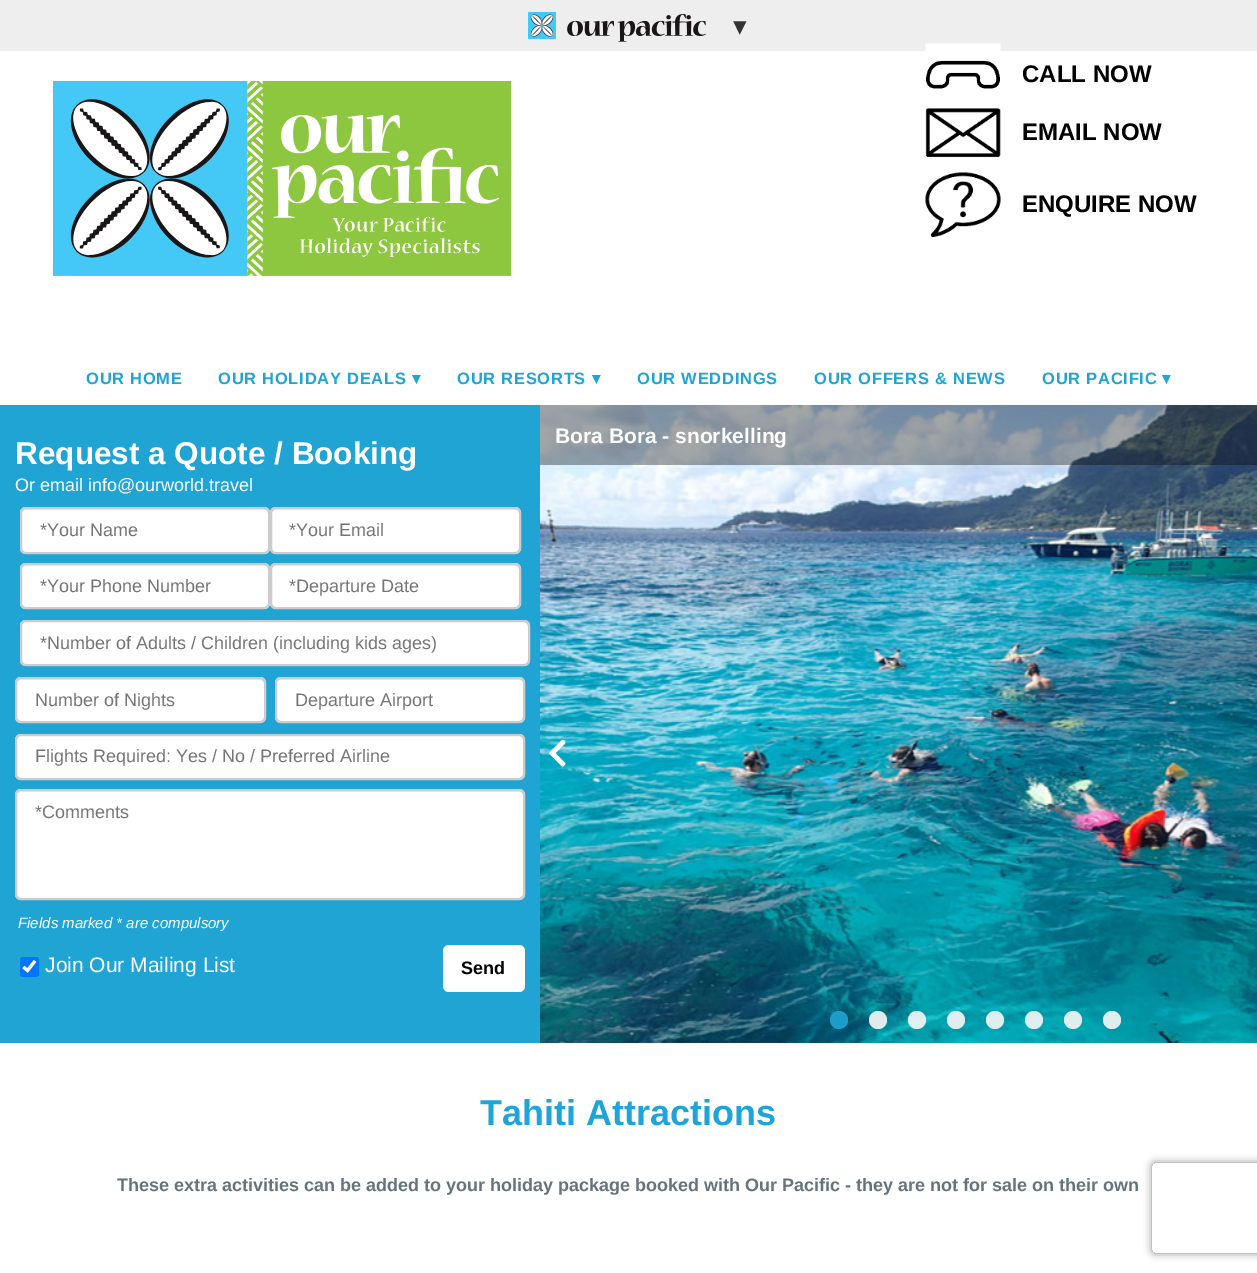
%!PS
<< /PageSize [1257 1273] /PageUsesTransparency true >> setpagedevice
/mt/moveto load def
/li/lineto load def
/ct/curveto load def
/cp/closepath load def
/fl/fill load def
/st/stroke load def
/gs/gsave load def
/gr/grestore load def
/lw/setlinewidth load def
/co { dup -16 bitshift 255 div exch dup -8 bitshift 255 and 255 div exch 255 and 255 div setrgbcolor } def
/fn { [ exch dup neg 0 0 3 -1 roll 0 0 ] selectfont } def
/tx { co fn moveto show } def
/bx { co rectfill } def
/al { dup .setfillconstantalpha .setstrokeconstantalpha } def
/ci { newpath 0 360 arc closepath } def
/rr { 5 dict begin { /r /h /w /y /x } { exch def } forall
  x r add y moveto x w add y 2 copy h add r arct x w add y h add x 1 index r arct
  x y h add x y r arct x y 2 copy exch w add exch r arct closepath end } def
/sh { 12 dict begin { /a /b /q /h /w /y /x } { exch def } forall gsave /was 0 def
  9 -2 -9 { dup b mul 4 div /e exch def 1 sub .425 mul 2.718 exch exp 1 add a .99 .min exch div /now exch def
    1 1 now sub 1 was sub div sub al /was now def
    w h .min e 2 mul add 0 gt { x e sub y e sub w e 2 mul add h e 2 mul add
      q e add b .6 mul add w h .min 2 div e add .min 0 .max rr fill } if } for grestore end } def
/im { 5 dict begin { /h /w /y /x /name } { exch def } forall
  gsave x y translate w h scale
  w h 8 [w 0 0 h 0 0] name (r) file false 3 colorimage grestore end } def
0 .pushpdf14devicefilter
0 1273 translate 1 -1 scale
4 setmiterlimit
0 0 1257 1273 16#FFFFFF bx
0 0 1257 51 16#EEEEEE bx
(media/1.raw) 528 12 179 30 im
(media/2.raw) 53 81 459 195 im
(media/3.raw) 925 43 76 46 im
(media/4.raw) 925 108 76 50 im
(media/5.raw) 925 172 76 65 im
(media/6.raw) 540 405 717 638 im
0.35 al
540 405 717 60 16#000000 bx
1 al
(media/7.raw) 549 739 17 28 im
0.9 al
16#1FA4D3 co
839 1020 9 ci fl
16#F7F7F7 co
878 1020 9 ci fl
917 1020 9 ci fl
956 1020 9 ci fl
995 1020 9 ci fl
1034 1020 9 ci fl
1073 1020 9 ci fl
1112 1020 9 ci fl
1 al
0 405 540 638 16#1FA4D3 bx
16#FFFFFF co
20 507 250 47 6 rr fl
16#ECECEC co
26 510 mt 264 510 li 266 510 268 512 268 514 ct 268 550 li 269 549 269 548 269 547 ct 269 514 li 269 511 267 509 264 509 ct 26 509 li 23 509 21 511 21 514 ct 21 512 23 510 26 510 ct cp fl
16#CCCCCC co
2 lw
21 508 248 45 5 rr st
16#FFFFFF co
270 507 251 47 6 rr fl
16#ECECEC co
276 510 mt 514 510 li 517 510 519 512 519 514 ct 519 511 517 509 514 509 ct 277 509 li 274 509 272 511 272 514 ct 272 512 274 510 276 510 ct cp fl
16#CCCCCC co
271 508 249 45 5 rr st
16#FFFFFF co
20 563 250 46 6 rr fl
16#ECECEC co
26 566 mt 264 566 li 266 566 268 568 268 570 ct 268 604 li 267 607 li 268 606 269 604 269 603 ct 269 569 li 269 566 267 564 264 564 ct 26 564 li 23 564 21 566 21 569 ct 21 570 li 21 568 23 566 26 566 ct cp fl
16#CCCCCC co
21 564 248 44 5 rr st
16#FFFFFF co
270 563 251 46 6 rr fl
16#ECECEC co
276 566 mt 514 566 li 517 566 519 568 519 570 ct 519 569 li 519 566 517 564 514 564 ct 277 564 li 274 564 272 566 272 569 ct 272 570 li 272 568 274 566 276 566 ct cp fl
16#CCCCCC co
271 564 249 44 5 rr st
16#FFFFFF co
20 620 510 46 6 rr fl
16#ECECEC co
26 622 mt 524 622 li 526 622 528 625 528 627 ct 528 626 li 528 623 526 621 523 621 ct 26 621 li 23 621 21 623 21 626 ct 21 627 li 21 625 23 622 26 622 ct cp fl
16#CCCCCC co
21 621 508 44 5 rr st
16#FFFFFF co
15 677 251 46 6 rr fl
16#ECECEC co
21 680 mt 260 680 li 262 680 264 682 264 684 ct 264 683 li 264 680 262 678 259 678 ct 22 678 li 20 678 18 680 17 682 ct 18 681 20 680 21 680 ct cp fl
16#CCCCCC co
16 678 249 44 5 rr st
16#FFFFFF co
275 677 250 46 6 rr fl
16#ECECEC co
280 680 mt 519 680 li 521 680 524 682 524 684 ct 524 683 li 524 680 522 678 519 678 ct 281 678 li 278 678 276 680 276 683 ct 276 684 li 276 682 278 680 280 680 ct cp fl
16#CCCCCC co
276 678 248 44 5 rr st
16#FFFFFF co
15 734 510 46 6 rr fl
16#ECECEC co
21 736 mt 519 736 li 521 736 524 739 524 741 ct 524 740 li 524 737 522 735 519 735 ct 22 735 li 20 735 18 736 17 738 ct 18 737 20 736 21 736 ct cp fl
16#CCCCCC co
16 735 508 44 5 rr st
16#FFFFFF co
15 789 510 111 6 rr fl
16#ECECEC co
21 792 mt 519 792 li 521 792 524 794 524 796 ct 524 793 522 791 519 791 ct 22 791 li 20 791 19 792 18 793 ct cp fl
16#CCCCCC co
16 790 508 109 5 rr st
16#0075FF co
20 957 19 20 3 rr fl
16#FFFFFF co
3.1 lw
23.5 967 mt 27.5 970.5 li 35 961 li st
443 945 82 47 6 rr fl
gs
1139 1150 mt 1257 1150 li 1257 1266 li 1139 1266 li cp 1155 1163 mt 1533 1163 li 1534.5 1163 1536 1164.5 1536 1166 ct 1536 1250 li 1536 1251.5 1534.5 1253 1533 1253 ct 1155 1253 li 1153.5 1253 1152 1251.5 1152 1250 ct 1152 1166 li 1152 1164.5 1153.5 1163 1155 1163 ct cp eoclip newpath
16#808080 co
1152 1163 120 90 3 4 1 sh
gr
(▾) 733 35 /DejaVuSans-Regular 27 16#333333 tx
(CALL NOW) 1022 82 /LiberationSans-Bold 24 16#000000 tx
(EMAIL NOW) 1022 140 /LiberationSans-Bold 24 16#000000 tx
(ENQUIRE NOW) 1022 212 /LiberationSans-Bold 24 16#000000 tx
/LiberationSans-Bold 16.5 fn
16#1FA4D3 co
86 384 mt .75 0 (OUR HOME) ashow
218 384 mt .75 0 (OUR HOLIDAY DEALS) ashow
/DejaVuSans-Bold 16.5 fn
412 384 mt .75 0 (▾) ashow
/LiberationSans-Bold 16.5 fn
457 384 mt .75 0 (OUR RESORTS) ashow
/DejaVuSans-Bold 16.5 fn
592 384 mt .75 0 (▾) ashow
/LiberationSans-Bold 16.5 fn
637 384 mt .75 0 (OUR WEDDINGS) ashow
814 384 mt .75 0 (OUR OFFERS & NEWS) ashow
1042 384 mt .75 0 (OUR PACIFIC) ashow
/DejaVuSans-Bold 16.5 fn
1162 384 mt .75 0 (▾) ashow
(Bora Bora - snorkelling) 555 443 /LiberationSans-Bold 21 16#FFFFFF tx
(Request a Quote / Booking) 15 464 /LiberationSans-Bold 31.5 16#FFFFFF tx
(Or email info@ourworld.travel) 15 491 /LiberationSans-Regular 18 16#FFFFFF tx
(*Your Name) 40 536 /LiberationSans-Regular 18 16#757575 tx
(*Your Email) 289 536 /LiberationSans-Regular 18 16#757575 tx
(*Your Phone Number) 40 592 /LiberationSans-Regular 18 16#757575 tx
(*Departure Date) 289 592 /LiberationSans-Regular 18 16#757575 tx
(*Number of Adults / Children \(including kids ages\)) 40 649 /LiberationSans-Regular 18 16#757575 tx
(Number of Nights) 35 706 /LiberationSans-Regular 18 16#757575 tx
(Departure Airport) 295 706 /LiberationSans-Regular 18 16#757575 tx
(Flights Required: Yes / No / Preferred Airline) 35 762 /LiberationSans-Regular 18 16#757575 tx
(*Comments) 35 818 /LiberationSans-Regular 18 16#757575 tx
(Fields marked * are compulsory) 18 928 /LiberationSans-Italic 15 16#FFFFFF tx
(Join Our Mailing List) 45 972 /LiberationSans-Regular 21 16#FFFFFF tx
(Send) 461 974 /LiberationSans-Bold 18 16#000000 tx
(Tahiti Attractions) 480 1125 /LiberationSans-Bold 36 16#1FA4D9 tx
(These extra activities can be added to your holiday package booked with Our Pacific - they are not for sale on their own) 117 1191 /LiberationSans-Bold 18 16#65747C tx
.poppdf14devicefilter showpage
